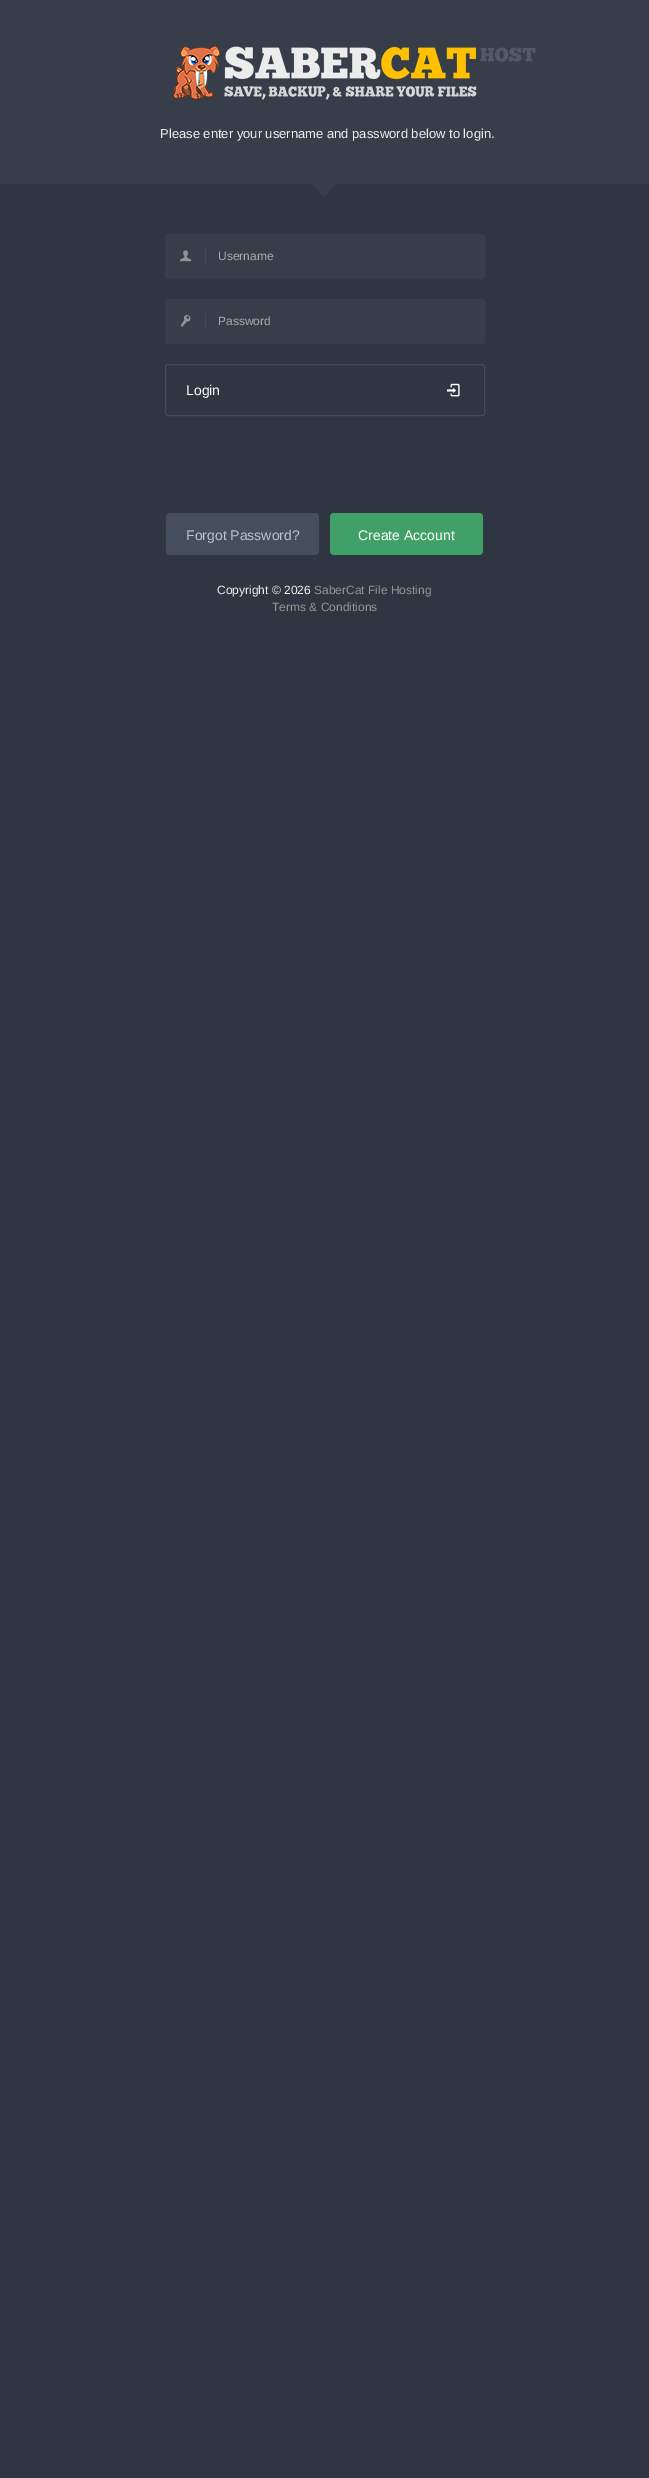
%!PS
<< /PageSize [649 2478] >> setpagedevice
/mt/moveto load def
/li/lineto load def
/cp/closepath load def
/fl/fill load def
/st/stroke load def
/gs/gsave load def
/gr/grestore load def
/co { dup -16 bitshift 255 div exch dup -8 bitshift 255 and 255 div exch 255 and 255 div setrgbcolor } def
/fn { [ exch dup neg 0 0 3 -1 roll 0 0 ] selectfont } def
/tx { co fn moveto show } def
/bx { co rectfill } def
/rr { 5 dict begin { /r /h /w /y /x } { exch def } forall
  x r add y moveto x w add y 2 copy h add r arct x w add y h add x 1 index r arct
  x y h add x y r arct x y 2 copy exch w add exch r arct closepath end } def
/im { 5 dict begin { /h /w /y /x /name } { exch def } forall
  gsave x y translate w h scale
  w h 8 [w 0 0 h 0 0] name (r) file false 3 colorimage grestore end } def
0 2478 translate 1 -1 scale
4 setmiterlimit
0 0 649 2478 16#303641 bx
0 0 649 184 16#373E4A bx
(media/1.raw) 172 45 364 55 im
312 184 mt 336 184 li 324 197 li cp fl
165.5 234.5 319 44 2.5 rr gs fl gr
st
(media/2.raw) 180 250 12 12 im
205 248 1 17 16#454A54 bx
16#373E4A co
165.5 299.5 319 44 2.5 rr gs fl gr
st
(media/3.raw) 181 315 10 12 im
205 313 1 17 16#454A54 bx
165.5 364.5 319 51 2.5 rr st
(media/4.raw) 447 383 13 14 im
16#454E5D co
166 513 153 42 4 rr fl
16#41A067 co
330 513 153 42 4 rr fl
(Please enter your username and password below to login.) 160 138 /LiberationSans-Regular 13 16#EEEEEE tx
(Username) 218 260 /LiberationSans-Regular 12 16#AAAAAA tx
(Password) 218 325 /LiberationSans-Regular 12 16#AAAAAA tx
(Login) 186 395 /LiberationSans-Regular 14 16#FFFFFF tx
(Forgot Password?) 186 540 /LiberationSans-Regular 14 16#BEC3CC tx
(Create Account) 358 540 /LiberationSans-Regular 14 16#FFFFFF tx
(Copyright © 2026) 217 594 /LiberationSans-Regular 12 16#EEEEEE tx
(SaberCat File Hosting) 314 594 /LiberationSans-Regular 12 16#949494 tx
(Terms & Conditions) 272 611 /LiberationSans-Regular 12 16#949494 tx
showpage
